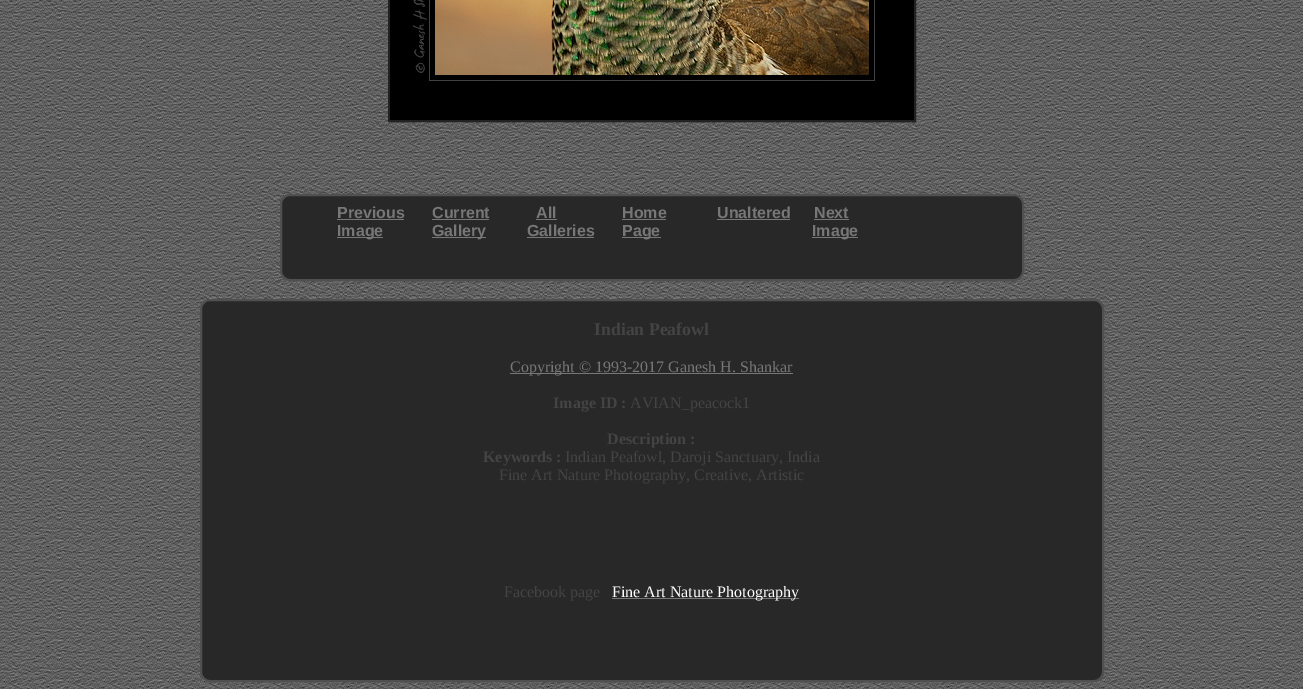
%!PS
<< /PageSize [1303 689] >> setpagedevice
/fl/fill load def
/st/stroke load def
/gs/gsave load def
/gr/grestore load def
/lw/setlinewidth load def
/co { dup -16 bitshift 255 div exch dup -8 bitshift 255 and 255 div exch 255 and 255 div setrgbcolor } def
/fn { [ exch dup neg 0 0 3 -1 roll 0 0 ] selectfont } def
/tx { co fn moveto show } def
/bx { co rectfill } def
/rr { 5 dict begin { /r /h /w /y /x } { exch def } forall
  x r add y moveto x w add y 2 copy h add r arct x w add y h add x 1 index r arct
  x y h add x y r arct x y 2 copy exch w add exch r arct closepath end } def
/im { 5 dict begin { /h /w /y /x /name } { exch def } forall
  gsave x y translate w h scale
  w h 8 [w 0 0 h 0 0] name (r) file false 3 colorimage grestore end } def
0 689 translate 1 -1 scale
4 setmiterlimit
0 0 1303 689 16#FFFFFF bx
(media/1.raw) 0 0 1303 689 im
16#222222 co
2 lw
389 -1 526 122 rectstroke
(media/2.raw) 390 0 524 120 im
16#282828 co
281 195 742 85 9 rr gs fl gr
16#505050 co
st
337 219 67 1 16#777777 bx
337 237 46 1 16#777777 bx
432 219 57 1 16#777777 bx
432 237 54 1 16#777777 bx
536 219 21 1 16#777777 bx
527 237 67 1 16#777777 bx
622 219 44 1 16#777777 bx
622 237 39 1 16#777777 bx
717 219 73 1 16#777777 bx
814 219 35 1 16#777777 bx
812 237 46 1 16#777777 bx
16#282828 co
201 300 902 381 9 rr gs fl gr
16#505050 co
st
510 373 283 1 16#777777 bx
612 598 187 1 16#777777 bx
(Previous) 337 218 /LiberationSans-Bold 16 16#777777 tx
(Image) 337 236 /LiberationSans-Bold 16 16#777777 tx
(Current) 432 218 /LiberationSans-Bold 16 16#777777 tx
(Gallery) 432 236 /LiberationSans-Bold 16 16#777777 tx
(All) 536 218 /LiberationSans-Bold 16 16#777777 tx
(Galleries) 527 236 /LiberationSans-Bold 16 16#777777 tx
(Home) 622 218 /LiberationSans-Bold 16 16#777777 tx
(Page) 622 236 /LiberationSans-Bold 16 16#777777 tx
(Unaltered) 717 218 /LiberationSans-Bold 16 16#777777 tx
(Next) 814 218 /LiberationSans-Bold 16 16#777777 tx
(Image) 812 236 /LiberationSans-Bold 16 16#777777 tx
(Indian Peafowl) 594 335 /LiberationSerif-Bold 17.75 16#444444 tx
(Copyright © 1993-2017 Ganesh H. Shankar) 510 372 /LiberationSerif-Regular 16 16#777777 tx
(Image ID :) 553 408 /LiberationSerif-Bold 16 16#444444 tx
(AVIAN_peacock1) 630 408 /LiberationSerif-Regular 16 16#444444 tx
(Description :) 607 444 /LiberationSerif-Bold 16 16#444444 tx
(Keywords :) 483 462 /LiberationSerif-Bold 16 16#444444 tx
(Indian Peafowl, Daroji Sanctuary, India) 565 462 /LiberationSerif-Regular 16 16#444444 tx
(Fine Art Nature Photography, Creative, Artistic) 499 480 /LiberationSerif-Regular 16 16#444444 tx
(Facebook page) 504 597 /LiberationSerif-Regular 16 16#444444 tx
(Fine Art Nature Photography) 612 597 /LiberationSerif-Regular 16 16#FFFFFF tx
showpage
